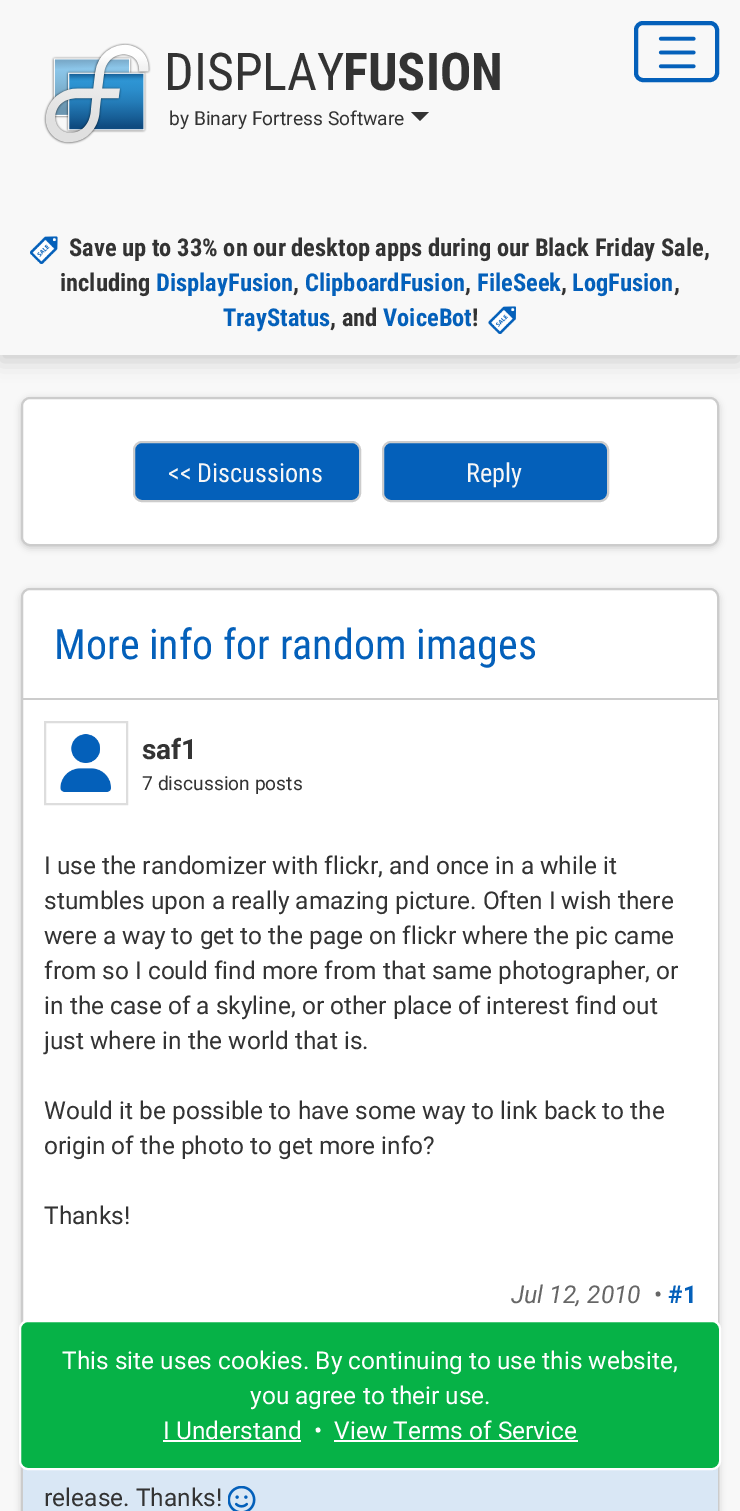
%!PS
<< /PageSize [740 1511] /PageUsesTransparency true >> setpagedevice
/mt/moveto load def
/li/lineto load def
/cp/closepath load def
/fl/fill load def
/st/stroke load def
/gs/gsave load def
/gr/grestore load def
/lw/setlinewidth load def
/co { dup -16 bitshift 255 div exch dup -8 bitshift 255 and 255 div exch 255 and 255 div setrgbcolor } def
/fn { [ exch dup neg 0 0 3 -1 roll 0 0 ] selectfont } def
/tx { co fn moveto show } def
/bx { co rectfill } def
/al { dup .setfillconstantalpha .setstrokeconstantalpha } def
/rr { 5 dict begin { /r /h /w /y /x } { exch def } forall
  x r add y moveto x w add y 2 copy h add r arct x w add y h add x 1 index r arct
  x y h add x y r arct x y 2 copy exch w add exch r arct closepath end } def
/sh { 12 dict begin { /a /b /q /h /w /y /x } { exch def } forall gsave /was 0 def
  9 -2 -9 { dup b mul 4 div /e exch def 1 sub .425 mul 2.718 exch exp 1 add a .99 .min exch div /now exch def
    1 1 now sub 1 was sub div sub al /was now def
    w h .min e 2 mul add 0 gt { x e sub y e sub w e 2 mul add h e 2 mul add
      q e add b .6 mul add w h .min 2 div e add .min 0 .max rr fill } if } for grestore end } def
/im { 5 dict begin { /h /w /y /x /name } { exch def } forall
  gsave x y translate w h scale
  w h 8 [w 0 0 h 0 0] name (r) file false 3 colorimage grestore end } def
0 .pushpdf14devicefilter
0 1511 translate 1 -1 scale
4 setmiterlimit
0 0 740 1511 16#F8F8F8 bx
gs
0 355 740 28 rectclip
16#CCCCCC co
0 5 740 356 0 10.5 1 sh
gr
(media/1.raw) 43 43 108 102 im
16#333333 co
411 112 mt 429 112 li 420 121 li cp fl
16#0460BA co
4 lw
636 23 81 57 7 rr st
(media/2.raw) 658 36 38 33 im
(media/3.raw) 30 236 28 28 im
(media/4.raw) 488 306 28 28 im
16#CCCCCC co
21 399 698 149 9 3.5 1 sh
16#FFFFFF co
22 398 696 147 8 rr gs fl gr
16#CCCCCC co
2 lw
st
16#0460BA co
134 442 226 59 8 rr gs fl gr
16#CCCCCC co
st
16#0460BA co
383 442 225 59 8 rr gs fl gr
16#CCCCCC co
st
21 590 698 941 9 3.5 1 sh
16#FFFFFF co
22 589 696 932 8 rr gs fl gr
16#CCCCCC co
st
23 698 695 2 16#CCCCCC bx
717 700 1 623 16#FFFFFF bx
16#DDDDDD co
45 722 82 82 rectstroke
(media/5.raw) 60 734 51 58 im
23 1467 695 44 16#D9E7F5 bx
(media/6.raw) 228 1486 28 25 im
16#06B247 co
20 1321 700 148 8 rr gs fl gr
16#FFFFFF co
st
163 1440 138 2 16#FFFFFF bx
334 1440 244 2 16#FFFFFF bx
(DISPLAY) 164 90 /RobotoCondensed-Regular 52 16#333333 tx
(FUSION) 343 90 /RobotoCondensed-Bold 52 16#333333 tx
(by Binary Fortress Software) 169 125 /Roboto-Regular 19.25 16#333333 tx
(Save up to 33% on our desktop apps during our Black Friday Sale,) 69 256 /RobotoCondensed-Bold 24.5 16#333333 tx
(including) 60 291 /RobotoCondensed-Bold 24.5 16#333333 tx
(DisplayFusion) 156 291 /RobotoCondensed-Bold 24.5 16#0460BA tx
(,) 293 291 /RobotoCondensed-Bold 24.5 16#333333 tx
(ClipboardFusion) 305 291 /RobotoCondensed-Bold 24.5 16#0460BA tx
(,) 465 291 /RobotoCondensed-Bold 24.5 16#333333 tx
(FileSeek) 477 291 /RobotoCondensed-Bold 24.5 16#0460BA tx
(,) 561 291 /RobotoCondensed-Bold 24.5 16#333333 tx
(LogFusion) 572 291 /RobotoCondensed-Bold 24.5 16#0460BA tx
(,) 674 291 /RobotoCondensed-Bold 24.5 16#333333 tx
(TrayStatus) 223 326 /RobotoCondensed-Bold 24.5 16#0460BA tx
(, and) 330 326 /RobotoCondensed-Bold 24.5 16#333333 tx
(VoiceBot) 383 326 /RobotoCondensed-Bold 24.5 16#0460BA tx
(!) 472 326 /RobotoCondensed-Bold 24.5 16#333333 tx
(<< Discussions) 168 482 /RobotoCondensed-Regular 26.25 16#F6F6F6 tx
(Reply) 466 482 /RobotoCondensed-Regular 26.25 16#F6F6F6 tx
(More info for random images) 54 659 /RobotoCondensed-Regular 42 16#0460BA tx
(saf1) 142 759 /Roboto-Bold 28 16#333333 tx
(7 discussion posts) 142 790 /Roboto-Regular 19.25 16#333333 tx
(I use the randomizer with flickr, and once in a while it) 44 874 /Roboto-Regular 24.5 16#333333 tx
(stumbles upon a really amazing picture. Often I wish there) 44 909 /Roboto-Regular 24.5 16#333333 tx
(were a way to get to the page on flickr where the pic came) 44 944 /Roboto-Regular 24.5 16#333333 tx
(from so I could find more from that same photographer, or) 44 979 /Roboto-Regular 24.5 16#333333 tx
(in the case of a skyline, or other place of interest find out) 44 1014 /Roboto-Regular 24.5 16#333333 tx
(just where in the world that is.) 44 1049 /Roboto-Regular 24.5 16#333333 tx
(Would it be possible to have some way to link back to the) 44 1119 /Roboto-Regular 24.5 16#333333 tx
(origin of the photo to get more info?) 44 1154 /Roboto-Regular 24.5 16#333333 tx
(Thanks!) 44 1224 /Roboto-Regular 24.5 16#333333 tx
(Jul 12, 2010) 511 1303 /Roboto-Italic 24.5 16#666666 tx
(•) 654 1303 /Roboto-Regular 24.5 16#666666 tx
(#1) 668 1303 /Roboto-Bold 24.5 16#0460BA tx
(release. Thanks!) 44 1506 /Roboto-Regular 24.5 16#333333 tx
(This site uses cookies. By continuing to use this website,) 62 1369 /Roboto-Regular 24.5 16#FFFFFF tx
(you agree to their use.) 250 1404 /Roboto-Regular 24.5 16#FFFFFF tx
(I Understand) 163 1439 /Roboto-Regular 24.5 16#FFFFFF tx
(•) 314 1439 /Roboto-Regular 24.5 16#FFFFFF tx
(View Terms of Service) 334 1439 /Roboto-Regular 24.5 16#FFFFFF tx
.poppdf14devicefilter showpage
